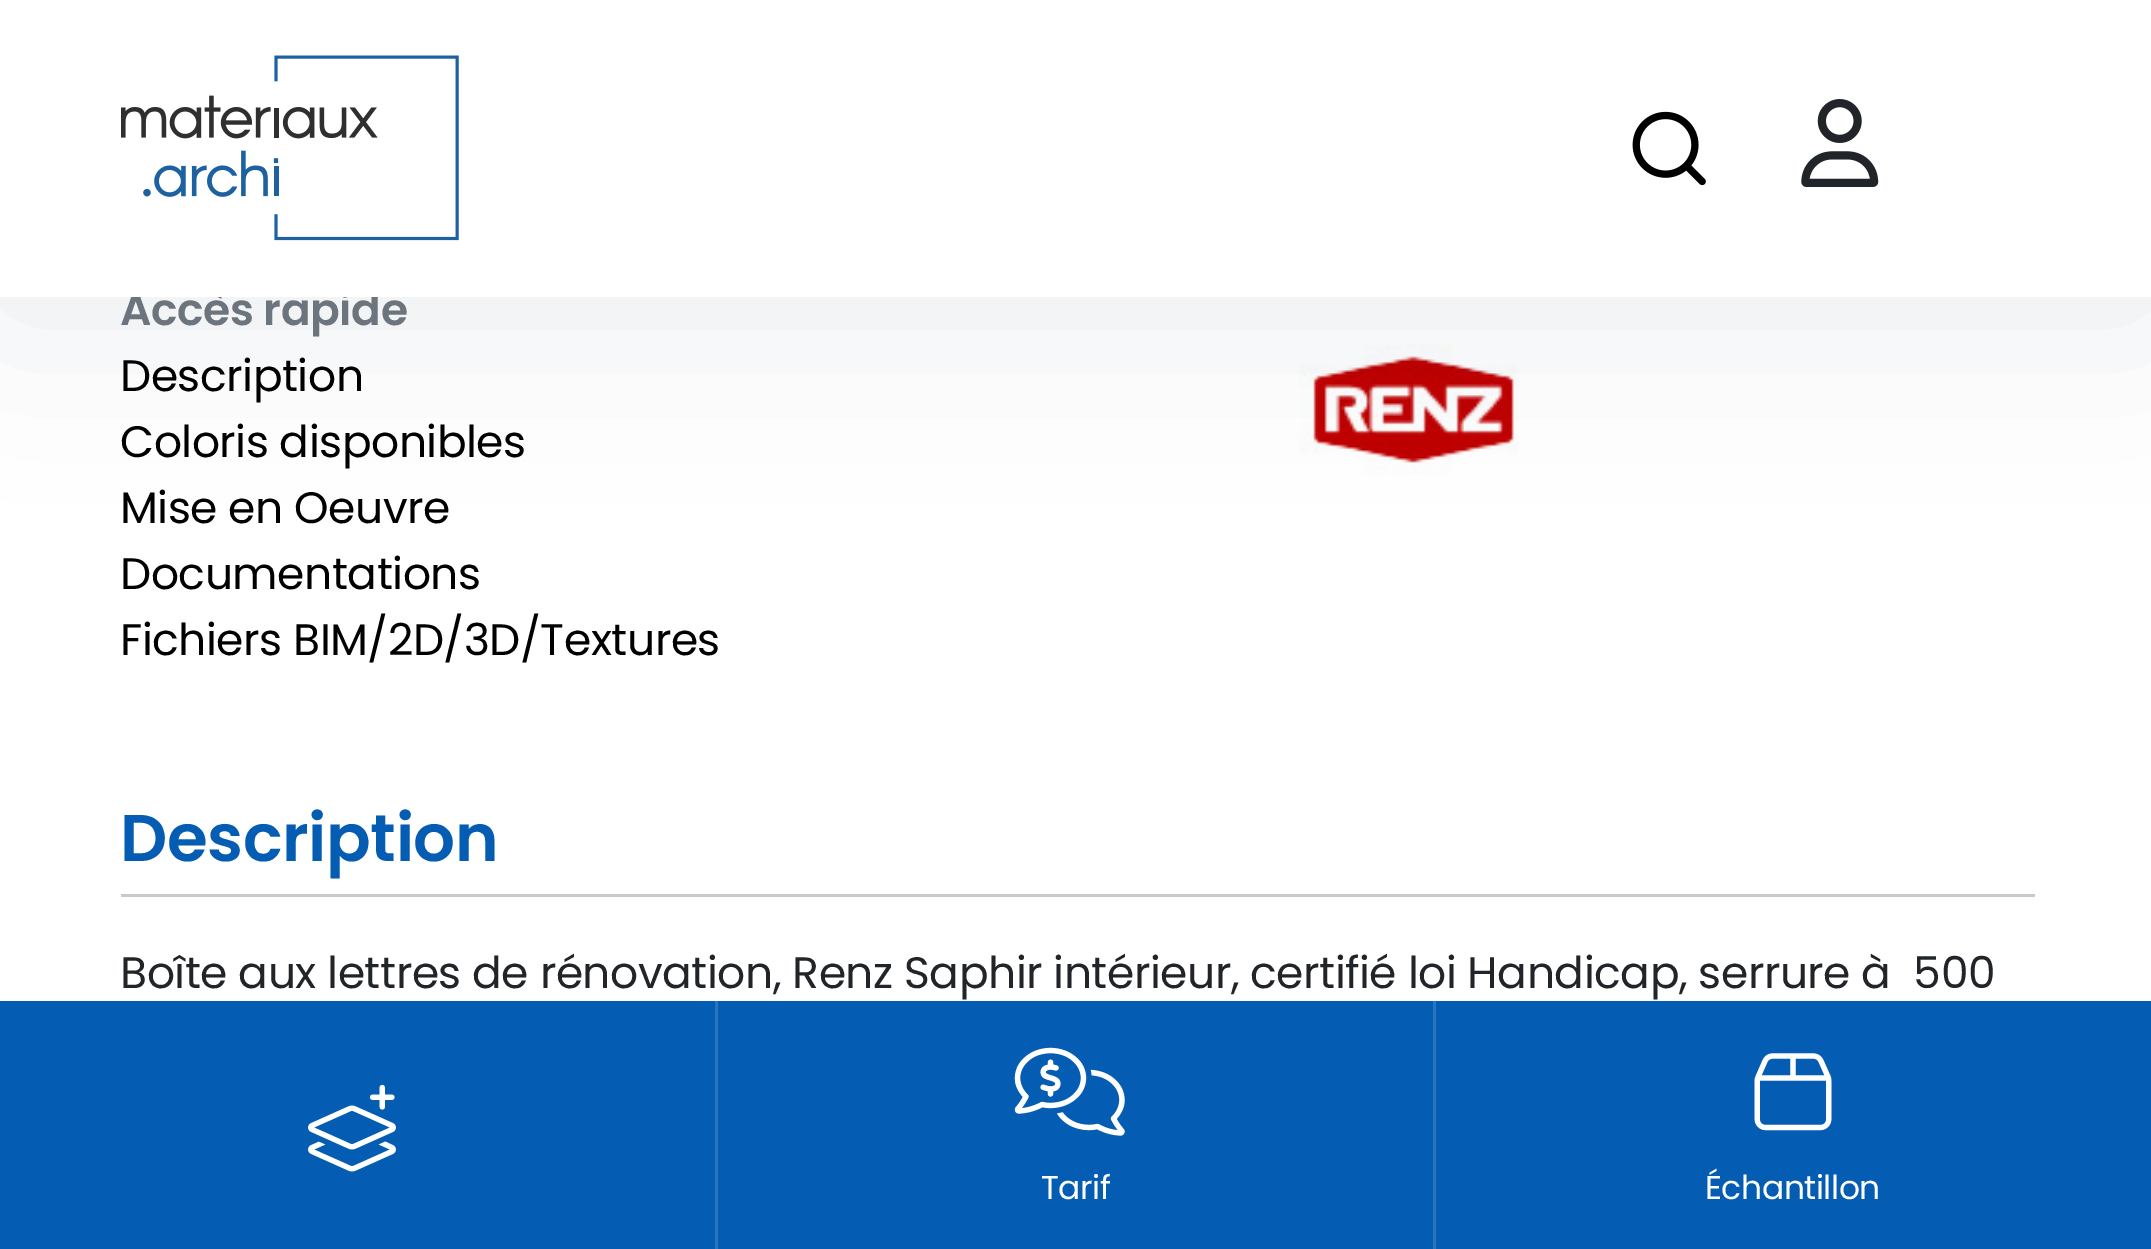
%!PS
<< /PageSize [2151 1249] /PageUsesTransparency true >> setpagedevice
/mt/moveto load def
/co { dup -16 bitshift 255 div exch dup -8 bitshift 255 and 255 div exch 255 and 255 div setrgbcolor } def
/fn { [ exch dup neg 0 0 3 -1 roll 0 0 ] selectfont } def
/bx { co rectfill } def
/al { dup .setfillconstantalpha .setstrokeconstantalpha } def
/rr { 5 dict begin { /r /h /w /y /x } { exch def } forall
  x r add y moveto x w add y 2 copy h add r arct x w add y h add x 1 index r arct
  x y h add x y r arct x y 2 copy exch w add exch r arct closepath end } def
/sh { 12 dict begin { /a /b /q /h /w /y /x } { exch def } forall gsave /was 0 def
  9 -2 -9 { dup b mul 4 div /e exch def 1 sub .425 mul 2.718 exch exp 1 add a .99 .min exch div /now exch def
    1 1 now sub 1 was sub div sub al /was now def
    w h .min e 2 mul add 0 gt { x e sub y e sub w e 2 mul add h e 2 mul add
      q e add b .6 mul add w h .min 2 div e add .min 0 .max rr fill } if } for grestore end } def
/im { 5 dict begin { /h /w /y /x /name } { exch def } forall
  gsave x y translate w h scale
  w h 8 [w 0 0 h 0 0] name (r) file false 3 colorimage grestore end } def
0 .pushpdf14devicefilter
0 1249 translate 1 -1 scale
4 setmiterlimit
0 0 2151 1249 16#FFFFFF bx
(media/4.raw) 1299 344 220 131 im
16#011E42 co
0 11 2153 297 0 88 .1 sh
121 894 1914 3 16#C8C9CA bx
0 1001 2151 248 16#045DB2 bx
715 1001 3 248 16#2A75BE bx
(media/5.raw) 308 1084 88 88 im
1433 1001 3 248 16#2A75BE bx
(media/6.raw) 1014 1047 111 89 im
(media/7.raw) 1754 1053 78 78 im
/Poppins-SemiBold 44 fn
16#6C757D co
120 325 mt -.45 0 (Accès rapide) ashow
0 0 2151 297 16#FFFFFF bx
(media/2.raw) 1632 111 74 75 im
(media/3.raw) 1801 99 78 88 im
(media/1.raw) 121 55 338 186 im
/Poppins-Regular 44 fn
16#000000 co
120 391 mt -.45 0 (Description) ashow
120 457 mt -.45 0 (Coloris disponibles) ashow
120 523 mt -.45 0 (Mise en Oeuvre) ashow
120 589 mt -.45 0 (Documentations) ashow
120 655 mt -.45 0 (Fichiers BIM/2D/3D/Textures) ashow
/Poppins-SemiBold 66 fn
16#045DB2 co
120 861 mt -.45 0 (Description) ashow
/Poppins-Regular 44 fn
16#212529 co
120 988 mt -.45 0 (Boîte aux lettres de rénovation, Renz Saphir intérieur, certifié loi Handicap, serrure à  500) ashow
/Poppins-Regular 33 fn
16#FFFFFF co
1041 1199 mt -.45 0 (Tarif) ashow
1705 1199 mt -.45 0 (Échantillon) ashow
.poppdf14devicefilter showpage
